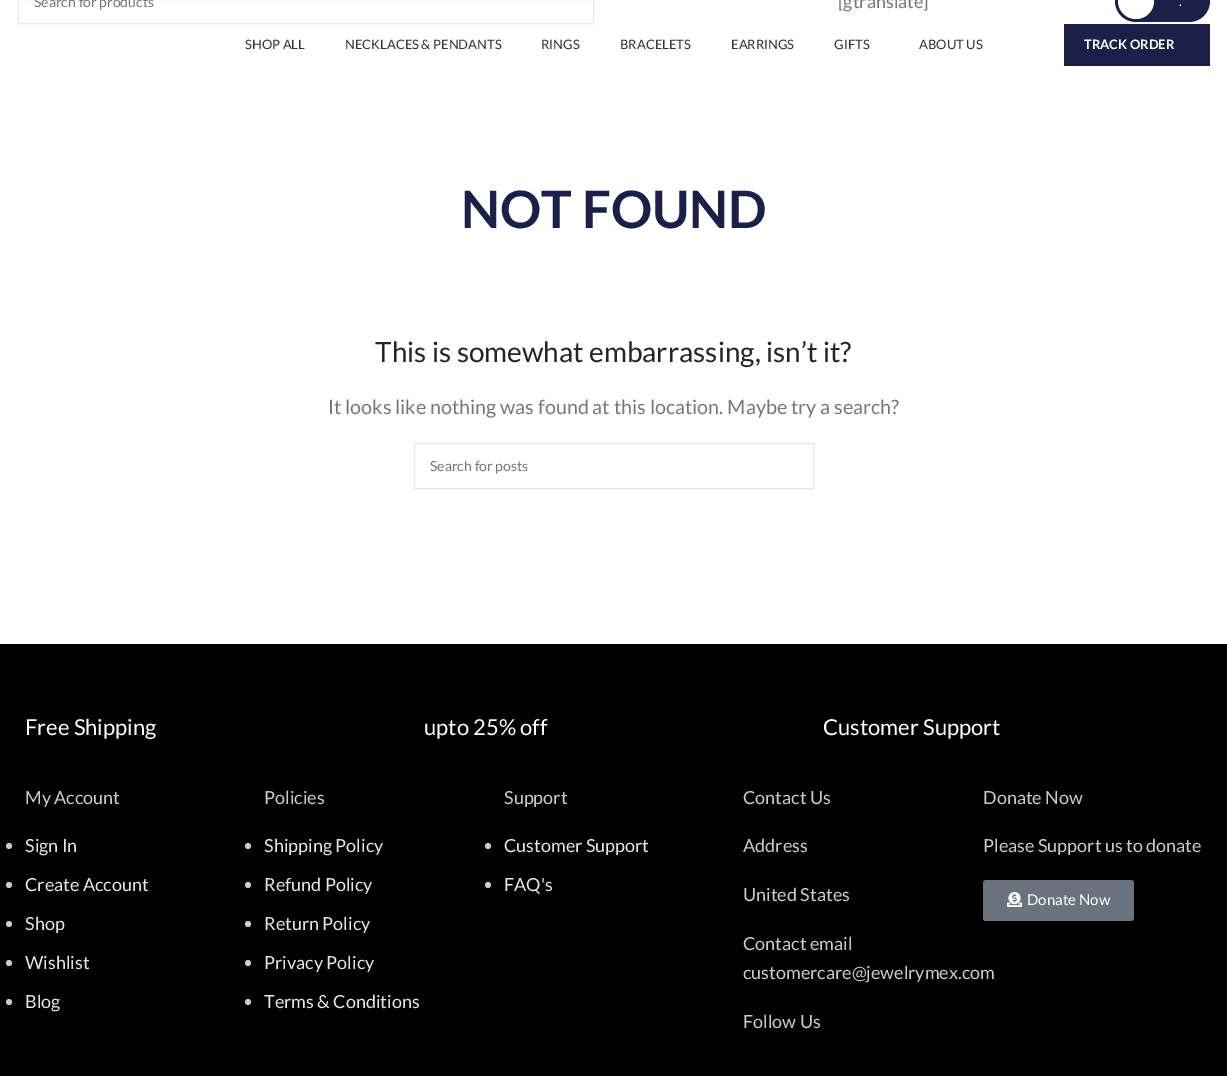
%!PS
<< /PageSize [1227 1076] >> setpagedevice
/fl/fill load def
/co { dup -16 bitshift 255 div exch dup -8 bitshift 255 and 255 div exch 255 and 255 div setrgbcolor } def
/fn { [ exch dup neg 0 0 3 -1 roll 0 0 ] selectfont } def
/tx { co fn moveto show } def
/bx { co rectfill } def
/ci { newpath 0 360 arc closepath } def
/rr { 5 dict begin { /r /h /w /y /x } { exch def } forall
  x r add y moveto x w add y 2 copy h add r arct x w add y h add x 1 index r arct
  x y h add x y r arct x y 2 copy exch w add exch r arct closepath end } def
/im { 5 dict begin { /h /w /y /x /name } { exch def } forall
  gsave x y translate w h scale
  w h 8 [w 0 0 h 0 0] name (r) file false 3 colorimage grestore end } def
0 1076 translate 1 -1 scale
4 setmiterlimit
0 0 1227 1076 16#FFFFFF bx
16#E6E6E6 co
18.5 -.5 575 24 rectstroke
16#1A2048 co
1115 -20 95 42 21 rr fl
16#FFFFFF co
1136 1 18 ci fl
1064 24 146 42 16#1A2048 bx
16#E6E6E6 co
414.5 443.5 399 45 rectstroke
0 644 1227 432 16#000000 bx
16#CCCCCC co
9 846 3 ci fl
9 885 3 ci fl
9 924 3 ci fl
9 963 3 ci fl
9 1002 3 ci fl
248 846 3 ci fl
248 885 3 ci fl
248 924 3 ci fl
248 963 3 ci fl
248 1002 3 ci fl
488 846 3 ci fl
488 885 3 ci fl
16#69727D co
983 880 151 41 3 rr fl
(media/1.raw) 1007 892 15 15 im
(Search for products) 34 7 /Lato-Regular 14 16#777777 tx
([gtranslate]) 838 8 /Lato-Regular 18 16#777777 tx
(.) 1179 6 /Lato-Regular 13 16#FFFFFF tx
(SHOP ALL) 245 49 /Lato-Regular 13 16#333333 tx
(NECKLACES & PENDANTS) 345 49 /Lato-Regular 13 16#333333 tx
(RINGS) 541 49 /Lato-Regular 13 16#333333 tx
(BRACELETS) 620 49 /Lato-Regular 13 16#333333 tx
(EARRINGS) 731 49 /Lato-Regular 13 16#333333 tx
(GIFTS) 834 49 /Lato-Regular 13 16#333333 tx
(ABOUT US) 919 49 /Lato-Regular 13 16#333333 tx
(TRACK ORDER) 1084 49 /Lato-Bold 13 16#FFFFFF tx
(NOT FOUND) 461 228 /Lato-Bold 51.5 16#1A2048 tx
(This is somewhat embarrassing, isn’t it?) 375 362 /Lato-Regular 28 16#242424 tx
(It looks like nothing was found at this location. Maybe try a search?) 328 414 /Lato-Regular 19.8 16#777777 tx
(Search for posts) 430 471 /Lato-Regular 14 16#777777 tx
(Free Shipping) 25 735 /Lato-Regular 22 16#FFFFFF tx
(upto 25% off) 424 735 /Lato-Regular 22 16#FFFFFF tx
(Customer Support) 823 735 /Lato-Regular 22 16#FFFFFF tx
(My Account) 25 804 /Lato-Regular 18 16#CCCCCC tx
(Sign In) 25 852 /Lato-Regular 18 16#E6E6E6 tx
(Create Account) 25 891 /Lato-Regular 18 16#E6E6E6 tx
(Shop) 25 930 /Lato-Regular 18 16#E6E6E6 tx
(Wishlist) 25 969 /Lato-Regular 18 16#E6E6E6 tx
(Blog) 25 1008 /Lato-Regular 18 16#E6E6E6 tx
(Policies) 264 804 /Lato-Regular 18 16#CCCCCC tx
(Shipping Policy) 264 852 /Lato-Regular 18 16#E6E6E6 tx
(Refund Policy) 264 891 /Lato-Regular 18 16#E6E6E6 tx
(Return Policy) 264 930 /Lato-Regular 18 16#E6E6E6 tx
(Privacy Policy) 264 969 /Lato-Regular 18 16#E6E6E6 tx
(Terms & Conditions) 264 1008 /Lato-Regular 18 16#E6E6E6 tx
(Support) 504 804 /Lato-Regular 18 16#CCCCCC tx
(Customer Support) 504 852 /Lato-Regular 18 16#E6E6E6 tx
(FAQ's) 504 891 /Lato-Regular 18 16#E6E6E6 tx
(Contact Us) 743 804 /Lato-Regular 18 16#CCCCCC tx
(Address) 743 852 /Lato-Regular 18 16#CCCCCC tx
(United States) 743 901 /Lato-Regular 18 16#CCCCCC tx
(Contact email) 743 950 /Lato-Regular 18 16#CCCCCC tx
(customercare@jewelrymex.com) 743 979 /Lato-Regular 18 16#CCCCCC tx
(Follow Us) 743 1028 /Lato-Regular 18 16#CCCCCC tx
(Donate Now) 983 804 /Lato-Regular 18 16#CCCCCC tx
(Please Support us to donate) 983 852 /Lato-Regular 18 16#CCCCCC tx
(Donate Now) 1027 905 /Lato-Regular 15 16#FFFFFF tx
showpage
